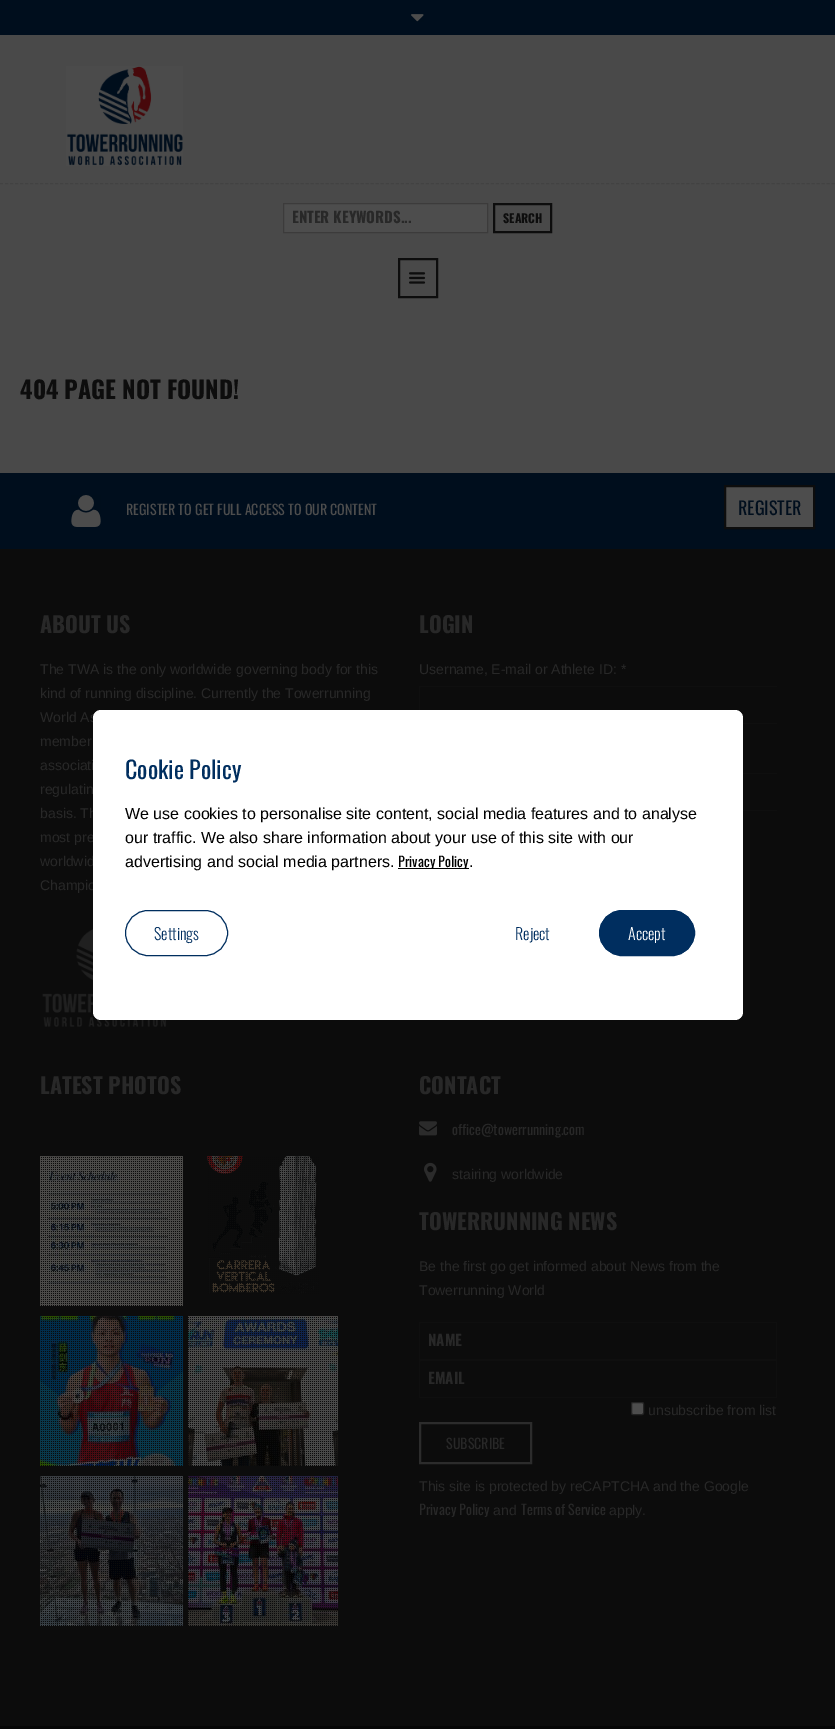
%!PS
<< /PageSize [835 1729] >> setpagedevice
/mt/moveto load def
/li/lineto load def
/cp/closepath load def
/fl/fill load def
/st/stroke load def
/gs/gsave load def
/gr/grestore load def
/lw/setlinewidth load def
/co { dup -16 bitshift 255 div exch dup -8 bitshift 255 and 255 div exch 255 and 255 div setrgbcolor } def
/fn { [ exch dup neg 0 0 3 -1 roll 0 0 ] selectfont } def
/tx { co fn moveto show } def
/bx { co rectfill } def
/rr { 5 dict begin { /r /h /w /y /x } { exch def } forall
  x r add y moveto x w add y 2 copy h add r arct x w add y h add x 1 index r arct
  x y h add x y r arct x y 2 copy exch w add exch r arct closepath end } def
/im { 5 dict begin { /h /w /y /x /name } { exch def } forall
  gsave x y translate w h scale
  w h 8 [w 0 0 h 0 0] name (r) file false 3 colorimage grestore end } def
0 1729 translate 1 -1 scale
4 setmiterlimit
0 0 835 1729 16#494949 bx
0 0 835 35 16#000E1D bx
(media/1.raw) 411 14 13 8 im
16#424242 co
[3 2.01] 0 setdash
0 183.5 mt 835 183.5 li st
(media/2.raw) 66 66 117 100 im
16#4D4D4D co
283.5 203.5 mt 487.5 203.5 li 487.5 232.5 li 283.5 232.5 li cp gs fl gr
16#3C3B3B co
[] 0 setdash
st
16#0D0D0D co
2 lw
494 204 57 28 rectstroke
399 259 38 38 rectstroke
(media/3.raw) 409 272 17 12 im
0 473 835 76 16#000E1D bx
(media/4.raw) 71 495 30 32 im
16#4D4D4D co
725 486 mt 814 486 li 814 528 li 725 528 li cp gs fl gr
16#0D0D0D co
st
0 549 835 1177 16#0C0C0C bx
(media/5.raw) 42 929 125 98 im
gs
419 657 358 87 rectclip
16#0F0F0F co
1 lw
419.5 686.5 367 37 rectstroke
gr
gs
419 744 358 87 rectclip
16#0F0F0F co
1 lw
419.5 773.5 367 37 rectstroke
gr
(media/6.raw) 40 1156 143 150 im
(media/7.raw) 41 1157 141 149 im
(media/8.raw) 207 1156 112 138 im
(media/9.raw) 208 1157 111 137 im
(media/10.raw) 40 1316 143 150 im
(media/11.raw) 41 1317 141 149 im
(media/12.raw) 188 1316 150 150 im
(media/13.raw) 188 1317 149 149 im
(media/14.raw) 40 1476 143 150 im
(media/15.raw) 41 1477 141 149 im
(media/16.raw) 188 1476 150 150 im
(media/17.raw) 188 1477 149 149 im
(media/18.raw) 419 1121 18 15 im
(media/19.raw) 424 1162 13 20 im
16#0F0F0F co
1 lw
419.5 1322.5 357 37 rectstroke
419.5 1360.5 357 37 rectstroke
16#4D4D4D co
631.5 1402.5 12 12 1.5 rr gs fl gr
16#232323 co
st
16#2C2C2C co
2 lw
420 1423 111 40 rectstroke
0 1726 835 3 16#060606 bx
(ENTER KEYWORDS...) 292 223 /Oswald-Bold 15 16#282828 tx
(SEARCH) 503 223 /Oswald-Bold 12 16#0D0D0D tx
(404 PAGE NOT FOUND!) 20 399 /Oswald-Bold 24 16#0D0D0D tx
(REGISTER TO GET FULL ACCESS TO OUR CONTENT) 126 515 /Oswald-Regular 14 16#4D4D4D tx
(REGISTER) 738 515 /Oswald-Regular 18 16#000E1D tx
(ABOUT US) 40 633 /Oswald-Bold 22 16#282828 tx
(The TWA is the only worldwide governing body for this) 40 674 /LiberationSans-Regular 14 16#282828 tx
(kind of running discipline. Currently the Towerrunning) 40 698 /LiberationSans-Regular 14 16#282828 tx
(World As) 40 722 /LiberationSans-Regular 14 16#282828 tx
(member) 40 746 /LiberationSans-Regular 14 16#282828 tx
(associati) 40 770 /LiberationSans-Regular 14 16#282828 tx
(regulatin) 40 794 /LiberationSans-Regular 14 16#282828 tx
(basis. Th) 40 818 /LiberationSans-Regular 14 16#282828 tx
(most pre) 40 842 /LiberationSans-Regular 14 16#282828 tx
(worldwid) 40 866 /LiberationSans-Regular 14 16#282828 tx
(Champio) 40 890 /LiberationSans-Regular 14 16#282828 tx
(LOGIN) 419 633 /Oswald-Bold 22 16#282828 tx
(Username, E-mail or Athlete ID:) 419 674 /LiberationSans-Regular 14 16#282828 tx
(*) 621 674 /LiberationSans-Regular 14 16#282828 tx
(LATEST PHOTOS) 40 1094 /Oswald-Bold 22 16#282828 tx
(CONTACT) 419 1094 /Oswald-Bold 22 16#282828 tx
(office@towerrunning.com) 452 1135 /Oswald-Regular 14 16#282828 tx
(stairing worldwide) 452 1179 /LiberationSans-Regular 14 16#282828 tx
(TOWERRUNNING NEWS) 419 1230 /Oswald-Bold 22 16#282828 tx
(Be the first go get informed about News from the) 419 1271 /LiberationSans-Regular 14 16#282828 tx
(Towerrunning World) 419 1295 /LiberationSans-Regular 14 16#282828 tx
(NAME) 428 1346 /Oswald-Bold 15 16#282828 tx
(EMAIL) 428 1384 /Oswald-Bold 15 16#282828 tx
(unsubscribe from list) 648 1415 /LiberationSans-Regular 14 16#282828 tx
(SUBSCRIBE) 446 1449 /Oswald-Regular 14 16#282828 tx
(This site is protected by reCAPTCHA and the Google) 419 1491 /LiberationSans-Regular 14 16#282828 tx
(Privacy Policy) 419 1515 /Oswald-Regular 14 16#282828 tx
(and) 493 1515 /LiberationSans-Regular 14 16#282828 tx
(Terms of Service) 521 1515 /Oswald-Regular 14 16#282828 tx
(apply.) 609 1515 /LiberationSans-Regular 14 16#282828 tx
16#FFFFFF co
93 710 650 310 8 rr fl
(Cookie Policy) 125 779 /Oswald-Regular 24 16#002E5F tx
(We use cookies to personalise site content, social media features and to analyse) 125 819 /LiberationSans-Regular 16 16#000000 tx
(our traffic. We also share information about your use of this site with our) 125 843 /LiberationSans-Regular 16 16#000000 tx
(advertising and social media partners.) 125 867 /LiberationSans-Regular 16 16#000000 tx
398 868 71 1 16#000000 bx
(Privacy Policy) 398 867 /Oswald-Regular 14 16#000000 tx
(.) 469 867 /LiberationSans-Regular 16 16#000000 tx
16#002E5F co
1 lw
125.5 910.5 102 45 22.5 rr st
(Settings) 154 940 /Oswald-Light 16 16#002E5F tx
(Reject) 515 940 /Oswald-Light 16 16#002E5F tx
599.5 910.5 95 45 22.5 rr gs fl gr
st
(Accept) 628 940 /Oswald-Light 16 16#FFFFFF tx
showpage
